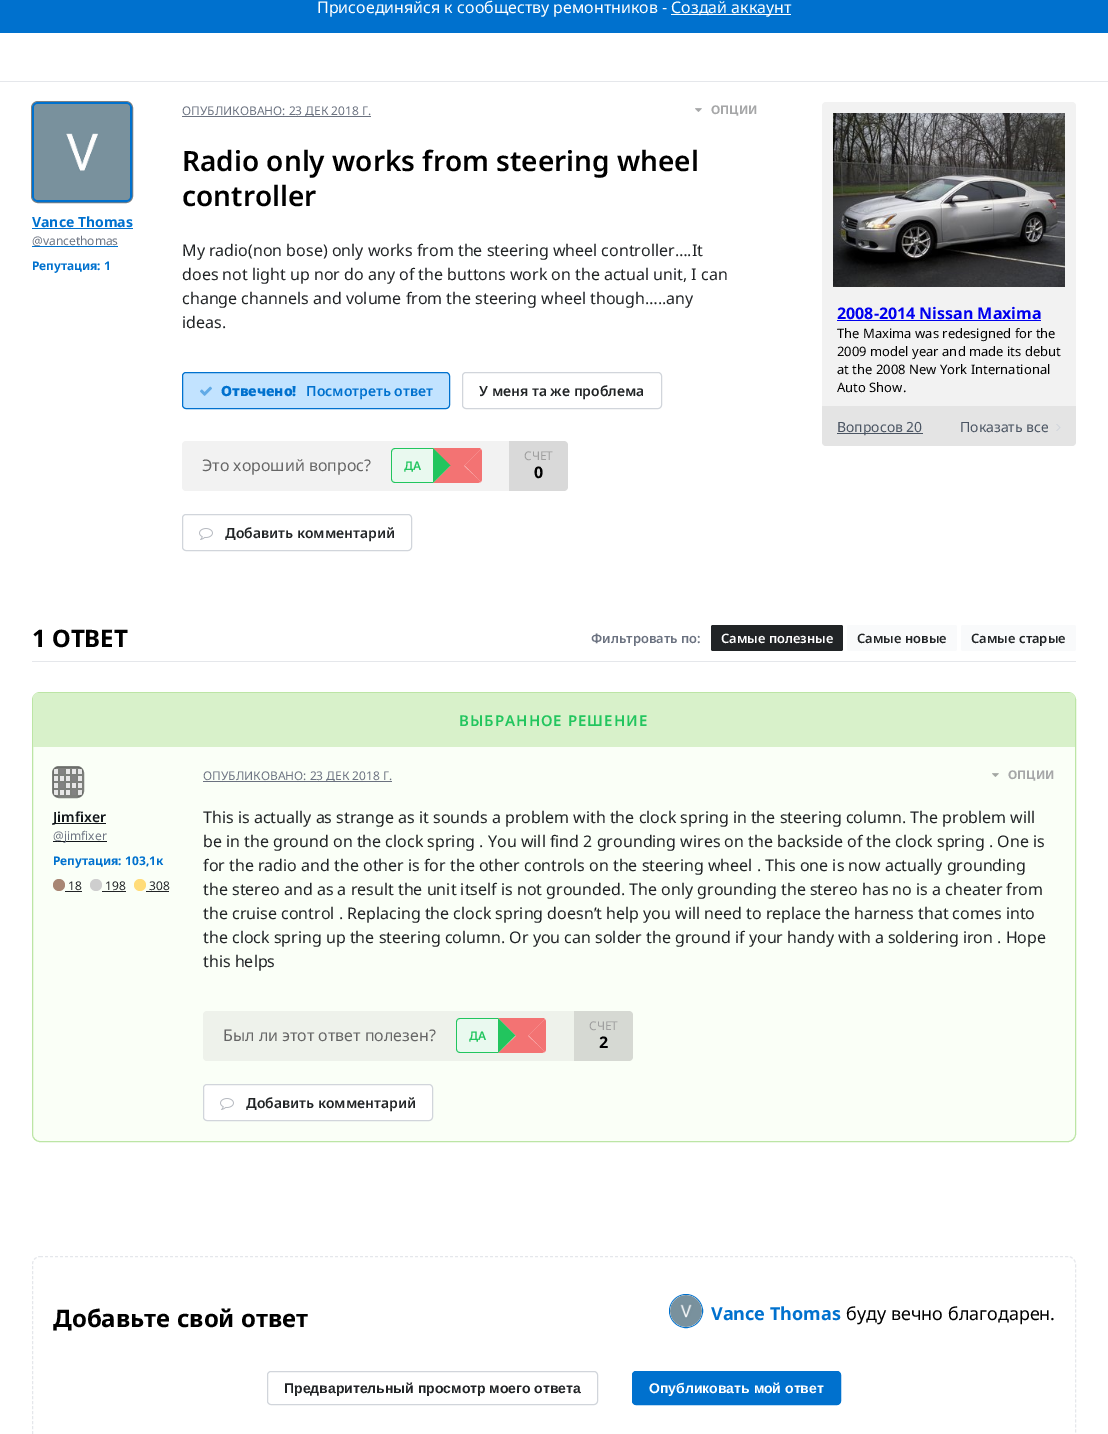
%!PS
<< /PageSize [1108 1434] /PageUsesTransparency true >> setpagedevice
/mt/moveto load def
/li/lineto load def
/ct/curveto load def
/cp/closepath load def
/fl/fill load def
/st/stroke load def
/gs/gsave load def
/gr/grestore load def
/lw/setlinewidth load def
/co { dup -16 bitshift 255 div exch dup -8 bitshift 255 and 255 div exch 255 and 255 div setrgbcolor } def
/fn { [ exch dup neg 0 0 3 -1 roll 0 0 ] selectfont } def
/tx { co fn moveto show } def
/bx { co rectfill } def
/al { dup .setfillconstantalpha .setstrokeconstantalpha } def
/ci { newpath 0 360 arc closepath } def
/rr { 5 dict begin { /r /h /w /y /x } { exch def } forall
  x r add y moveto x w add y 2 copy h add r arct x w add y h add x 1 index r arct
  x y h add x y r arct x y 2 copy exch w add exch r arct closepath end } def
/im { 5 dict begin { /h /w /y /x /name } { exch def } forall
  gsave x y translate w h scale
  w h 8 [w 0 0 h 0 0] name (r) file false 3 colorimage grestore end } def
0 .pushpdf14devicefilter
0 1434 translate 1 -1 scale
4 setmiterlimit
0 0 1108 1434 16#FFFFFF bx
0 0 1108 33 16#0071CE bx
671 14 120 1 16#FFFFFF bx
0 81 1108 1 16#E5E7EB bx
16#808080 co
31.5 101.5 101 101 6.5 rr st
16#0071CE co
2 lw
33 103 98 98 5 rr st
(media/1.raw) 34 104 96 96 im
32 228 101 1 16#0071CE bx
32 246 86 1 16#0071CE bx
182 116 189 1 16#6B7280 bx
(media/2.raw) 695 108 7 4 im
16#C2E3FF co
182.5 372.5 267 36 3.5 rr gs fl gr
16#0071CE co
1 lw
st
(media/3.raw) 200 386 12 10 im
16#D1D5DB co
462.5 372.5 199 36 3.5 rr st
16#F2F2F2 co
182 441 386 50 4 rr fl
16#E9F9EF co
395 448 mt 433 448 li 433 483 li 395 483 li 393 483 391 481 391 479 ct 391 452 li 391 450 393 448 395 448 ct cp fl
16#22C55E co
395 448 mt 433 448 li 433 483 li 395 483 li 393 483 391 481 391 479 ct 391 452 li 391 450 393 448 395 448 ct cp 395 449 mt 433 449 li 433 482 li 395 482 li 393 482 392 481 392 479 ct 392 452 li 392 450 393 449 395 449 ct cp eofill
16#FFFFFF co
433 448 mt 478 448 li 480 448 482 450 482 452 ct 482 479 li 482 481 480 483 478 483 ct 433 483 li cp fl
16#F37373 co
433 448 mt 478 448 li 479 448 480 448 481 449 ct 464 466 li 450 466 li cp fl
481 449 mt 464.5 465.5 li 481 482 li 481.5 481 482 480 482 479 ct 482 452 li 482 451 481.5 450 481 449 ct cp fl
478 483 mt 433 483 li 450 466 li 464 466 li 481 482 li cp fl
16#22C55E co
433 448 mt 450.5 465.5 li 433 483 li cp fl
0.1 al
16#000000 co
509 441 mt 564 441 li 566 441 568 443 568 445 ct 568 487 li 568 489 566 491 564 491 ct 509 491 li cp fl
1 al
16#D1D5DB co
182.5 514.5 229 36 3.5 rr st
(media/4.raw) 199 528 14 12 im
16#F2F2F2 co
822 102 254 344 4 rr fl
(media/5.raw) 833 113 232 174 im
837 320 204 1 16#0000EE bx
16#E4E4E4 co
822 406 mt 1076 406 li 1076 442 li 1076 444 1074 446 1072 446 ct 826 446 li 824 446 822 444 822 442 ct cp fl
837 433 86 1 16#4B5563 bx
(media/6.raw) 1056 424 5 7 im
32 661 1044 1 16#E5E7EB bx
16#212426 co
711 625 132 26 2 rr fl
16#F9FAFB co
847 625 110 26 2 rr fl
961 625 115 26 2 rr fl
16#FAFFF7 co
32.5 692.5 1043 449 7.5 rr gs fl gr
16#BCE5A5 co
st
16#D8F1CA co
38 693 mt 1070 693 li 1073 693 1075 695 1075 698 ct 1075 747 li 33 747 li 33 698 li 33 695 35 693 38 693 ct cp fl
16#7D807C co
52.5 766.5 31 31 6.5 rr st
0.5 al
16#000000 co
53 767 30 30 6 rr fl
1 al
(media/7.raw) 54 769 28 26 im
53 823 53 1 16#11161A bx
53 841 54 1 16#11161A bx
16#A88674 co
59 885 6 ci fl
65 891 17 1 16#212426 bx
16#CECECE co
96 885 6 ci fl
102 891 24 1 16#212426 bx
16#FFDC78 co
140 885 6 ci fl
146 891 23 1 16#212426 bx
203 781 189 1 16#6B7280 bx
(media/8.raw) 992 773 7 4 im
16#EEF2EB co
203 1011 430 50 4 rr fl
16#E9F9EF co
460 1018 mt 498 1018 li 498 1053 li 460 1053 li 458 1053 456 1051 456 1049 ct 456 1022 li 456 1020 458 1018 460 1018 ct cp fl
16#22C55E co
460 1018 mt 498 1018 li 498 1053 li 460 1053 li 458 1053 456 1051 456 1049 ct 456 1022 li 456 1020 458 1018 460 1018 ct cp 460 1019 mt 498 1019 li 498 1052 li 460 1052 li 458 1052 457 1051 457 1049 ct 457 1022 li 457 1020 458 1019 460 1019 ct cp eofill
16#FFFFFF co
498 1018 mt 542 1018 li 544 1018 546 1020 546 1022 ct 546 1049 li 546 1051 544 1053 542 1053 ct 498 1053 li cp fl
16#F37373 co
498 1018 mt 542 1018 li 543 1018 544 1018 545 1019 ct 528 1036 li 516 1036 li cp fl
545 1019 mt 528.5 1035.5 li 545 1052 li 545.5 1051 546 1050 546 1049 ct 546 1022 li 546 1021 545.5 1020 545 1019 ct cp fl
542 1053 mt 498 1053 li 516 1036 li 528 1036 li 545 1052 li cp fl
16#22C55E co
498 1018 mt 515.5 1035.5 li 498 1053 li cp fl
0.1 al
16#000000 co
574 1011 mt 629 1011 li 631 1011 633 1013 633 1015 ct 633 1057 li 633 1059 631 1061 629 1061 ct 574 1061 li cp fl
1 al
16#FFFFFF co
203.5 1084.5 229 36 3.5 rr gs fl gr
16#D1D5DB co
st
(media/4.raw) 220 1098 14 12 im
16#E5E7EB co
[3 2] 0 setdash
40 1256.5 mt 1068 1256.5 li 1072 1256.5 1075.5 1260 1075.5 1264 ct 1075.5 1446 li 1075.5 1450 1072 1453.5 1068 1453.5 ct 40 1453.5 li 36 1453.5 32.5 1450 32.5 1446 ct 32.5 1264 li 32.5 1260 36 1256.5 40 1256.5 ct cp st
16#0071CE co
[] 0 setdash
686 1311 16.5 ci st
(media/9.raw) 670 1295 32 32 im
16#D1D5DB co
267.5 1371.5 330 33 3.5 rr st
16#0071CE co
632.5 1371.5 208 33 3.5 rr gs fl gr
st
(Присоединяйся к сообществу ремонтников -) 317 13 /NotoSans-Regular 16 16#FFFFFF tx
(Создай аккаунт) 671 13 /NotoSans-Regular 16 16#FFFFFF tx
(Vance Thomas) 32 227 /NotoSans-Bold 14 16#0071CE tx
(@vancethomas) 32 245 /NotoSans-Regular 12 16#6B7280 tx
(Репутация: 1) 32 270 /NotoSans-Bold 12 16#0071CE tx
(ОПУБЛИКОВАНО: 23 ДЕК 2018 Г.) 182 115 /NotoSans-Regular 12 16#6B7280 tx
(ОПЦИИ) 711 114 /NotoSans-Bold 12 16#A6A7A8 tx
(Radio only works from steering wheel) 182 171 /NotoSans-SemiBold 28 16#000000 tx
(controller) 182 206 /NotoSans-SemiBold 28 16#000000 tx
(My radio\(non bose\) only works from the steering wheel controller….It) 182 256 /NotoSans-Regular 16 16#212426 tx
(does not light up nor do any of the buttons work on the actual unit, I can) 182 280 /NotoSans-Regular 16 16#212426 tx
(change channels and volume from the steering wheel though…..any) 182 304 /NotoSans-Regular 16 16#212426 tx
(ideas.) 182 328 /NotoSans-Regular 16 16#212426 tx
(Отвечено!) 221 396 /NotoSans-Black 14 16#0071CE tx
(Посмотреть ответ) 306 396 /NotoSans-SemiBold 14 16#0071CE tx
(У меня та же проблема) 479 396 /NotoSans-SemiBold 14 16#212426 tx
(Это хороший вопрос?) 202 471 /NotoSans-Regular 16 16#666666 tx
(ДА) 404 470 /NotoSans-SemiBold 12 16#22C55E tx
(СЧЕТ) 524 460 /NotoSans-Regular 12 16#9E9E9E tx
(0) 534 478 /NotoSans-Bold 16 16#000000 tx
(Добавить комментарий) 225 538 /NotoSans-SemiBold 14 16#212426 tx
(2008-2014 Nissan Maxima) 837 319 /NotoSans-Bold 16 16#0000EE tx
(The Maxima was redesigned for the) 837 338 /NotoSans-Regular 13 16#000000 tx
(2009 model year and made its debut) 837 356 /NotoSans-Regular 13 16#000000 tx
(at the 2008 New York International) 837 374 /NotoSans-Regular 13 16#000000 tx
(Auto Show.) 837 392 /NotoSans-Regular 13 16#000000 tx
(Вопросов 20) 837 432 /NotoSans-Regular 14 16#4B5563 tx
(Показать все) 960 432 /NotoSans-Regular 14 16#4B5563 tx
(1 ОТВЕТ) 32 647 /NotoSans-Bold 24 16#000000 tx
(Фильтровать по:) 591 643 /NotoSans-SemiBold 13 16#6B7280 tx
(Самые полезные) 721 643 /NotoSans-SemiBold 13 16#FFFFFF tx
(Самые новые) 857 643 /NotoSans-SemiBold 13 16#212426 tx
(Самые старые) 971 643 /NotoSans-SemiBold 13 16#212426 tx
/NotoSans-SemiBold 15 fn
16#22C55E co
459 726 mt 1 0 (ВЫБРАННОЕ РЕШЕНИЕ) ashow
(Jimfixer) 53 822 /NotoSans-SemiBold 14 16#11161A tx
(@jimfixer) 53 840 /NotoSans-Regular 12 16#6B7280 tx
(Репутация: 103,1к) 53 865 /NotoSans-Bold 12 16#0071CE tx
(18) 68 890 /NotoSans-Regular 12 16#212426 tx
(198) 105 890 /NotoSans-Regular 12 16#212426 tx
(308) 149 890 /NotoSans-Regular 12 16#212426 tx
(ОПУБЛИКОВАНО: 23 ДЕК 2018 Г.) 203 780 /NotoSans-Regular 12 16#6B7280 tx
(ОПЦИИ) 1008 779 /NotoSans-Bold 12 16#A6A7A8 tx
(This is actually as strange as it sounds a problem with the clock spring in the steering column. The problem will) 203 823 /NotoSans-Regular 16 16#212426 tx
(be in the ground on the clock spring . You will find 2 grounding wires on the backside of the clock spring . One is) 203 847 /NotoSans-Regular 16 16#212426 tx
(for the radio and the other is for the other controls on the steering wheel . This one is now actually grounding) 203 871 /NotoSans-Regular 16 16#212426 tx
(the stereo and as a result the unit itself is not grounded. The only grounding the stereo has no is a cheater from) 203 895 /NotoSans-Regular 16 16#212426 tx
(the cruise control . Replacing the clock spring doesn’t help you will need to replace the harness that comes into) 203 919 /NotoSans-Regular 16 16#212426 tx
(the clock spring up the steering column. Or you can solder the ground if your handy with a soldering iron . Hope) 203 943 /NotoSans-Regular 16 16#212426 tx
(this helps) 203 967 /NotoSans-Regular 16 16#212426 tx
(Был ли этот ответ полезен?) 223 1041 /NotoSans-Regular 16 16#666666 tx
(ДА) 469 1040 /NotoSans-SemiBold 12 16#22C55E tx
(СЧЕТ) 589 1030 /NotoSans-Regular 12 16#9E9E9E tx
(2) 599 1048 /NotoSans-Bold 16 16#000000 tx
(Добавить комментарий) 246 1108 /NotoSans-SemiBold 14 16#212426 tx
(Добавьте свой ответ) 53 1327 /NotoSans-Bold 24 16#000000 tx
(Vance Thomas) 711 1320 /NotoSans-Bold 18 16#0071CE tx
(буду вечно благодарен.) 846 1320 /NotoSans-Regular 18 16#000000 tx
(Предварительный просмотр моего ответа) 284 1393 /LiberationSans-Bold 14 16#212426 tx
(Опубликовать мой ответ) 649 1393 /LiberationSans-Bold 14 16#FFFFFF tx
.poppdf14devicefilter showpage
